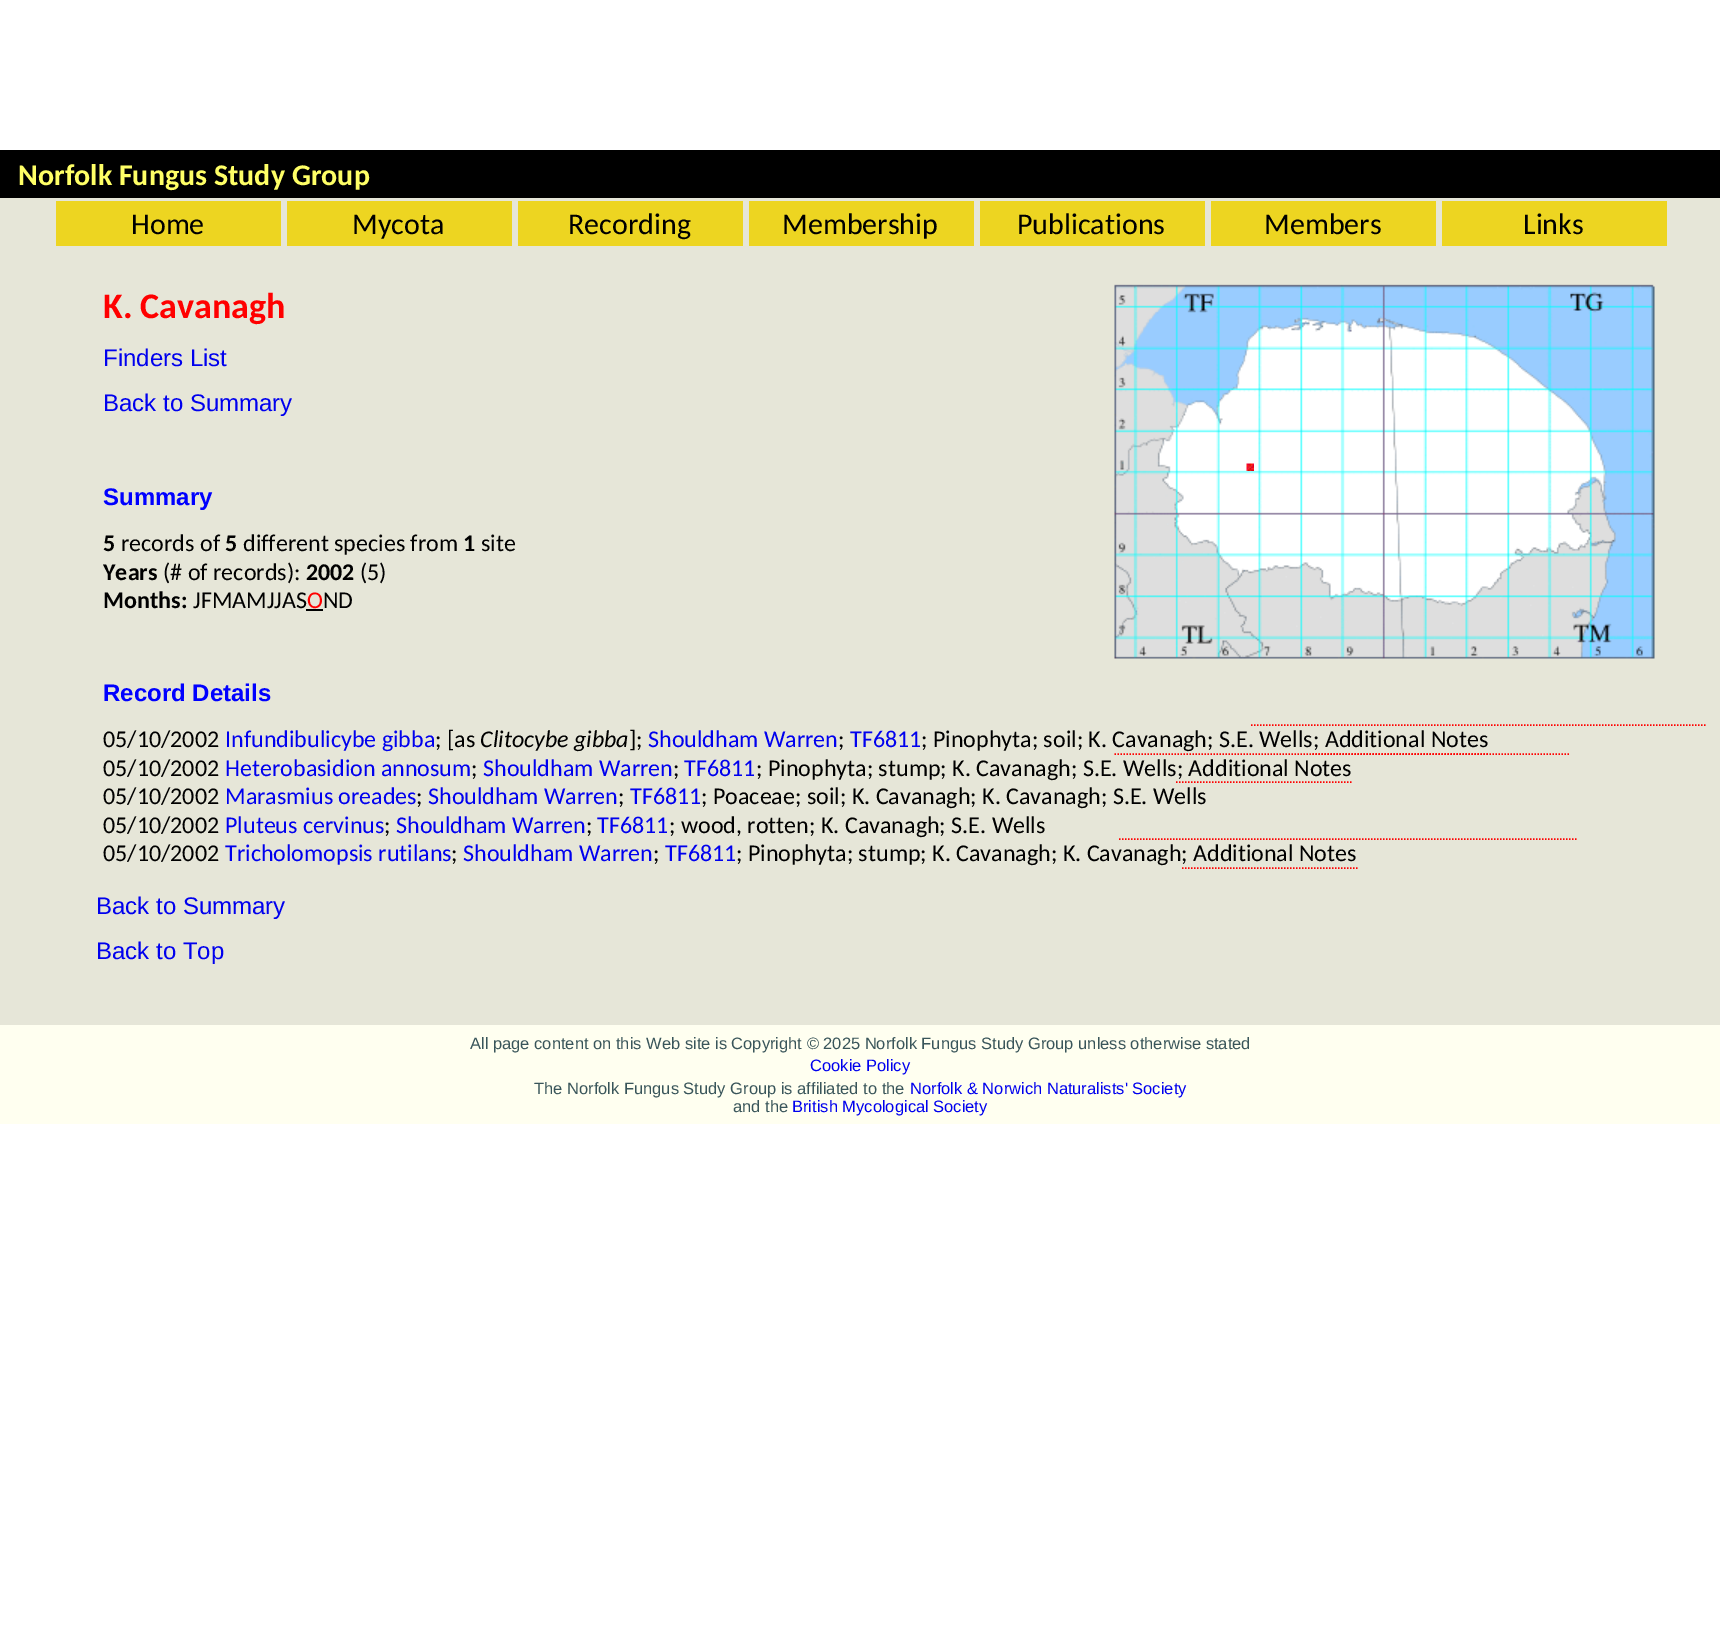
%!PS
<< /PageSize [1720 1637] >> setpagedevice
/mt/moveto load def
/li/lineto load def
/st/stroke load def
/lw/setlinewidth load def
/co { dup -16 bitshift 255 div exch dup -8 bitshift 255 and 255 div exch 255 and 255 div setrgbcolor } def
/fn { [ exch dup neg 0 0 3 -1 roll 0 0 ] selectfont } def
/tx { co fn moveto show } def
/bx { co rectfill } def
/im { 5 dict begin { /h /w /y /x /name } { exch def } forall
  gsave x y translate w h scale
  w h 8 [w 0 0 h 0 0] name (r) file false 3 colorimage grestore end } def
0 1637 translate 1 -1 scale
4 setmiterlimit
0 0 1720 1637 16#FFFFFF bx
0 150 1720 48 16#000000 bx
0 198 1720 827 16#E6E6D8 bx
56 201 225 45 16#EDD521 bx
287 201 225 45 16#EDD521 bx
518 201 225 45 16#EDD521 bx
749 201 225 45 16#EDD521 bx
980 201 225 45 16#EDD521 bx
1211 201 225 45 16#EDD521 bx
1442 201 225 45 16#EDD521 bx
(media/1.raw) 1114 284 541 375 im
(media/2.raw) 1246 463 8 8 im
306 609 17 2 16#000000 bx
16#FF0000 co
1.5 lw
[1.5 1.5] 0 setdash
1251 725 mt 1705.5 725 li st
1312.5 754 mt 1488 754 li st
1114.5 754 mt 1569 754 li st
1176 782 mt 1351.5 782 li st
1119 839 mt 1576.5 839 li st
1182 868 mt 1357.5 868 li st
0 1025 1720 99 16#FFFFF0 bx
(Norfolk Fungus Study Group) 18 185 /Carlito-Bold 30 16#FFFF66 tx
(Home) 131 234 /Carlito-Regular 30 16#000000 tx
(Mycota) 352 234 /Carlito-Regular 30 16#000000 tx
(Recording) 568 234 /Carlito-Regular 30 16#000000 tx
(Membership) 782 234 /Carlito-Regular 30 16#000000 tx
(Publications) 1017 234 /Carlito-Regular 30 16#000000 tx
(Members) 1264 234 /Carlito-Regular 30 16#000000 tx
(Links) 1523 234 /Carlito-Regular 30 16#000000 tx
(K. Cavanagh) 103 318 /Carlito-Bold 36 16#FF0000 tx
(Finders List) 103 366 /LiberationSans-Regular 24 16#0000EE tx
(Back to Summary) 103 411 /LiberationSans-Regular 24 16#0000EE tx
(Summary) 103 505 /LiberationSans-Bold 24 16#0000FF tx
(5) 103 551 /Carlito-Bold 24 16#000000 tx
(records of) 121 551 /Carlito-Regular 24 16#000000 tx
(5) 225 551 /Carlito-Bold 24 16#000000 tx
(different species from) 243 551 /Carlito-Regular 24 16#000000 tx
(1) 463 551 /Carlito-Bold 24 16#000000 tx
(site) 481 551 /Carlito-Regular 24 16#000000 tx
(Years) 103 580 /Carlito-Bold 24 16#000000 tx
(\(# of records\):) 163 580 /Carlito-Regular 24 16#000000 tx
(2002) 306 580 /Carlito-Bold 24 16#000000 tx
(\(5\)) 360 580 /Carlito-Regular 24 16#000000 tx
(Months:) 103 608 /Carlito-Bold 24 16#000000 tx
(JFMAMJJAS) 193 608 /Carlito-Regular 24 16#000000 tx
(O) 307 608 /Carlito-Regular 24 16#FF0000 tx
(ND) 323 608 /Carlito-Regular 24 16#000000 tx
(Record Details) 103 701 /LiberationSans-Bold 24 16#0000FF tx
(05/10/2002) 103 747 /Carlito-Regular 24 16#000000 tx
(Infundibulicybe gibba) 225 747 /Carlito-Regular 24 16#0000EE tx
(; [as) 435 747 /Carlito-Regular 24 16#000000 tx
(Clitocybe gibba) 480 747 /Carlito-Italic 24 16#000000 tx
(];) 629 747 /Carlito-Regular 24 16#000000 tx
(Shouldham Warren) 648 747 /Carlito-Regular 24 16#0000EE tx
(;) 838 747 /Carlito-Regular 24 16#000000 tx
(TF6811) 850 747 /Carlito-Regular 24 16#0000EE tx
(; Pinophyta; soil; K. Cavanagh; S.E. Wells; Additional Notes) 921 747 /Carlito-Regular 24 16#000000 tx
(05/10/2002) 103 776 /Carlito-Regular 24 16#000000 tx
(Heterobasidion annosum) 225 776 /Carlito-Regular 24 16#0000EE tx
(;) 471 776 /Carlito-Regular 24 16#000000 tx
(Shouldham Warren) 483 776 /Carlito-Regular 24 16#0000EE tx
(;) 673 776 /Carlito-Regular 24 16#000000 tx
(TF6811) 684 776 /Carlito-Regular 24 16#0000EE tx
(; Pinophyta; stump; K. Cavanagh; S.E. Wells; Additional Notes) 756 776 /Carlito-Regular 24 16#000000 tx
(05/10/2002) 103 804 /Carlito-Regular 24 16#000000 tx
(Marasmius oreades) 225 804 /Carlito-Regular 24 16#0000EE tx
(;) 416 804 /Carlito-Regular 24 16#000000 tx
(Shouldham Warren) 428 804 /Carlito-Regular 24 16#0000EE tx
(;) 618 804 /Carlito-Regular 24 16#000000 tx
(TF6811) 630 804 /Carlito-Regular 24 16#0000EE tx
(; Poaceae; soil; K. Cavanagh; K. Cavanagh; S.E. Wells) 701 804 /Carlito-Regular 24 16#000000 tx
(05/10/2002) 103 833 /Carlito-Regular 24 16#000000 tx
(Pluteus cervinus) 225 833 /Carlito-Regular 24 16#0000EE tx
(;) 384 833 /Carlito-Regular 24 16#000000 tx
(Shouldham Warren) 396 833 /Carlito-Regular 24 16#0000EE tx
(;) 586 833 /Carlito-Regular 24 16#000000 tx
(TF6811) 597 833 /Carlito-Regular 24 16#0000EE tx
(; wood, rotten; K. Cavanagh; S.E. Wells) 669 833 /Carlito-Regular 24 16#000000 tx
(05/10/2002) 103 861 /Carlito-Regular 24 16#000000 tx
(Tricholomopsis rutilans) 225 861 /Carlito-Regular 24 16#0000EE tx
(;) 451 861 /Carlito-Regular 24 16#000000 tx
(Shouldham Warren) 463 861 /Carlito-Regular 24 16#0000EE tx
(;) 653 861 /Carlito-Regular 24 16#000000 tx
(TF6811) 665 861 /Carlito-Regular 24 16#0000EE tx
(; Pinophyta; stump; K. Cavanagh; K. Cavanagh; Additional Notes) 736 861 /Carlito-Regular 24 16#000000 tx
(Back to Summary) 96 914 /LiberationSans-Regular 24 16#0000EE tx
(Back to Top) 96 959 /LiberationSans-Regular 24 16#0000EE tx
(All page content on this Web site is Copyright © 2025 Norfolk Fungus Study Group unless otherwise stated) 470 1049 /LiberationSans-Regular 16.5 16#39555A tx
(Cookie Policy) 810 1071 /LiberationSans-Regular 16.5 16#0000EE tx
(The Norfolk Fungus Study Group is affiliated to the) 534 1094 /LiberationSans-Regular 16.5 16#39555A tx
(Norfolk & Norwich Naturalists' Society) 910 1094 /LiberationSans-Regular 16.5 16#0000EE tx
(and the) 733 1112 /LiberationSans-Regular 16.5 16#39555A tx
(British Mycological Society) 792 1112 /LiberationSans-Regular 16.5 16#0000EE tx
showpage
